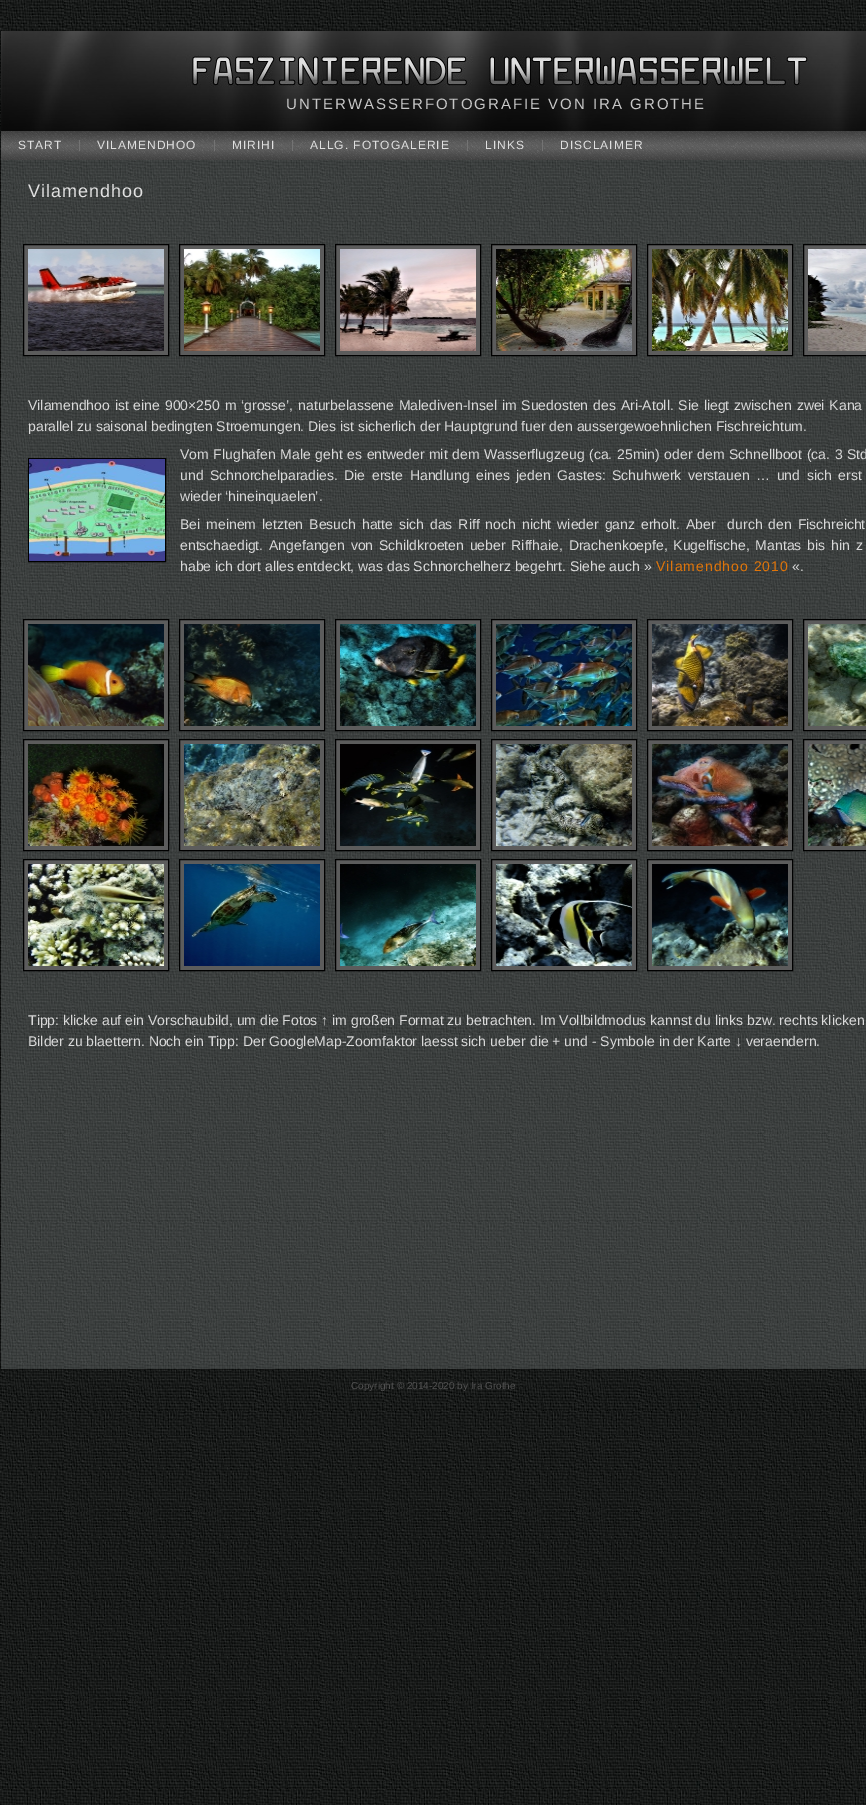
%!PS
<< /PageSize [866 1805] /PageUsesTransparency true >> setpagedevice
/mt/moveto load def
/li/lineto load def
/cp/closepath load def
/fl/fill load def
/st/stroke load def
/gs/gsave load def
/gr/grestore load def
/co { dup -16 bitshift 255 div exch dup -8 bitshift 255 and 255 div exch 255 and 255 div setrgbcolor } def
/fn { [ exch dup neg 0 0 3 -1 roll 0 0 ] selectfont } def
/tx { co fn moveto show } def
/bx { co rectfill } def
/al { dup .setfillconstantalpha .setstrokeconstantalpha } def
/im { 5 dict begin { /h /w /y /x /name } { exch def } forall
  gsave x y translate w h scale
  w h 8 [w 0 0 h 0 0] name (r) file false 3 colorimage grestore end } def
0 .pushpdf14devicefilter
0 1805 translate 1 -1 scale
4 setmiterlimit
0 0 866 1805 16#FFFFFF bx
(media/1.raw) 0 0 866 1805 im
0.3 al
1 30 865 1 16#000000 bx
0 31 1 1338 16#000000 bx
1 al
(media/2.raw) 1 31 865 100 im
(media/3.raw) 1 131 865 29 im
79 140 1 11 16#737373 bx
214 140 1 11 16#737373 bx
292 140 1 11 16#737373 bx
467 140 1 11 16#737373 bx
542 140 1 11 16#737373 bx
0.3 al
1 160 865 1209 16#8D9494 bx
1 al
16#5C5C5C co
23.5 244.5 mt 168.5 244.5 li 168.5 355.5 li 23.5 355.5 li cp gs fl gr
16#000000 co
st
(media/4.raw) 28 249 136 102 im
16#5C5C5C co
179.5 244.5 mt 324.5 244.5 li 324.5 355.5 li 179.5 355.5 li cp gs fl gr
16#000000 co
st
(media/5.raw) 184 249 136 102 im
16#5C5C5C co
335.5 244.5 mt 480.5 244.5 li 480.5 355.5 li 335.5 355.5 li cp gs fl gr
16#000000 co
st
(media/6.raw) 340 249 136 102 im
16#5C5C5C co
491.5 244.5 mt 636.5 244.5 li 636.5 355.5 li 491.5 355.5 li cp gs fl gr
16#000000 co
st
(media/7.raw) 496 249 136 102 im
16#5C5C5C co
647.5 244.5 mt 792.5 244.5 li 792.5 355.5 li 647.5 355.5 li cp gs fl gr
16#000000 co
st
(media/8.raw) 652 249 136 102 im
16#5C5C5C co
803.5 244.5 mt 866.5 244.5 li 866.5 355.5 li 803.5 355.5 li cp gs fl gr
16#000000 co
st
(media/9.raw) 808 249 58 102 im
28.5 458.5 137 103 rectstroke
(media/10.raw) 29 459 136 102 im
16#5C5C5C co
23.5 619.5 mt 168.5 619.5 li 168.5 730.5 li 23.5 730.5 li cp gs fl gr
16#000000 co
st
(media/11.raw) 28 624 136 102 im
16#5C5C5C co
179.5 619.5 mt 324.5 619.5 li 324.5 730.5 li 179.5 730.5 li cp gs fl gr
16#000000 co
st
(media/12.raw) 184 624 136 102 im
16#5C5C5C co
335.5 619.5 mt 480.5 619.5 li 480.5 730.5 li 335.5 730.5 li cp gs fl gr
16#000000 co
st
(media/13.raw) 340 624 136 102 im
16#5C5C5C co
491.5 619.5 mt 636.5 619.5 li 636.5 730.5 li 491.5 730.5 li cp gs fl gr
16#000000 co
st
(media/14.raw) 496 624 136 102 im
16#5C5C5C co
647.5 619.5 mt 792.5 619.5 li 792.5 730.5 li 647.5 730.5 li cp gs fl gr
16#000000 co
st
(media/15.raw) 652 624 136 102 im
16#5C5C5C co
803.5 619.5 mt 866.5 619.5 li 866.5 730.5 li 803.5 730.5 li cp gs fl gr
16#000000 co
st
(media/16.raw) 808 624 58 102 im
16#5C5C5C co
23.5 739.5 mt 168.5 739.5 li 168.5 850.5 li 23.5 850.5 li cp gs fl gr
16#000000 co
st
(media/17.raw) 28 744 136 102 im
16#5C5C5C co
179.5 739.5 mt 324.5 739.5 li 324.5 850.5 li 179.5 850.5 li cp gs fl gr
16#000000 co
st
(media/18.raw) 184 744 136 102 im
16#5C5C5C co
335.5 739.5 mt 480.5 739.5 li 480.5 850.5 li 335.5 850.5 li cp gs fl gr
16#000000 co
st
(media/19.raw) 340 744 136 102 im
16#5C5C5C co
491.5 739.5 mt 636.5 739.5 li 636.5 850.5 li 491.5 850.5 li cp gs fl gr
16#000000 co
st
(media/20.raw) 496 744 136 102 im
16#5C5C5C co
647.5 739.5 mt 792.5 739.5 li 792.5 850.5 li 647.5 850.5 li cp gs fl gr
16#000000 co
st
(media/21.raw) 652 744 136 102 im
16#5C5C5C co
803.5 739.5 mt 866.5 739.5 li 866.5 850.5 li 803.5 850.5 li cp gs fl gr
16#000000 co
st
(media/22.raw) 808 744 58 102 im
16#5C5C5C co
23.5 859.5 mt 168.5 859.5 li 168.5 970.5 li 23.5 970.5 li cp gs fl gr
16#000000 co
st
(media/23.raw) 28 864 136 102 im
16#5C5C5C co
179.5 859.5 mt 324.5 859.5 li 324.5 970.5 li 179.5 970.5 li cp gs fl gr
16#000000 co
st
(media/24.raw) 184 864 136 102 im
16#5C5C5C co
335.5 859.5 mt 480.5 859.5 li 480.5 970.5 li 335.5 970.5 li cp gs fl gr
16#000000 co
st
(media/25.raw) 340 864 136 102 im
16#5C5C5C co
491.5 859.5 mt 636.5 859.5 li 636.5 970.5 li 491.5 970.5 li cp gs fl gr
16#000000 co
st
(media/26.raw) 496 864 136 102 im
16#5C5C5C co
647.5 859.5 mt 792.5 859.5 li 792.5 970.5 li 647.5 970.5 li cp gs fl gr
16#000000 co
st
(media/27.raw) 652 864 136 102 im
0 1369 1 1 16#0E100F bx
0.3 al
1 1369 865 1 16#000000 bx
/LiberationSans-Regular 15 fn
1 al
16#C7C7C7 co
286 109 mt 2 0 (UNTERWASSERFOTOGRAFIE VON IRA GROTHE) ashow
/LiberationSans-Regular 12 fn
16#E0E0E0 co
18 149 mt 1 0 (START) ashow
97 149 mt 1 0 (VILAMENDHOO) ashow
232 149 mt 1 0 (MIRIHI) ashow
310 149 mt 1 0 (ALLG. FOTOGALERIE) ashow
485 149 mt 1 0 (LINKS) ashow
560 149 mt 1 0 (DISCLAIMER) ashow
/LiberationSans-Regular 18 fn
28 197 mt 1 0 (Vilamendhoo) ashow
/LiberationSans-Regular 14 fn
16#D9D9D9 co
28 410 mt 1 0 32 (Vilamendhoo ist eine 900×250 m ‘grosse’, naturbelassene Malediven-Insel im Suedosten des Ari-Atoll. Sie liegt zwischen zwei Kana) widthshow
(parallel zu saisonal bedingten Stroemungen. Dies ist sicherlich der Hauptgrund fuer den aussergewoehnlichen Fischreichtum.) 28 431 /LiberationSans-Regular 14 16#D9D9D9 tx
180 459 mt .75 0 32 (Vom Flughafen Male geht es entweder mit dem Wasserflugzeug \(ca. 25min\) oder dem Schnellboot \(ca. 3 Std) widthshow
180 480 mt 2.75 0 32 (und Schnorchelparadies. Die erste Handlung eines jeden Gastes: Schuhwerk verstauen … und sich erst) widthshow
(wieder ‘hineinquaelen’.) 180 501 /LiberationSans-Regular 14 16#D9D9D9 tx
180 529 mt 2.1 0 32 (Bei meinem letzten Besuch hatte sich das Riff noch nicht wieder ganz erholt. Aber  durch den Fischreicht) widthshow
180 550 mt 2 0 32 (entschaedigt. Angefangen von Schildkroeten ueber Riffhaie, Drachenkoepfe, Kugelfische, Mantas bis hin z) widthshow
(habe ich dort alles entdeckt, was das Schnorchelherz begehrt. Siehe auch ») 180 571 /LiberationSans-Regular 14 16#D9D9D9 tx
16#E17509 co
656 571 mt 1 0 (Vilamendhoo 2010) ashow
(«.) 792 571 /LiberationSans-Regular 14 16#D9D9D9 tx
(Tipp: klicke auf ein Vorschaubild, um die Fotos ↑ im großen Format zu betrachten. Im Vollbildmodus kannst du links bzw. rechts klicken) 28 1025 /LiberationSans-Regular 14 16#D9D9D9 tx
(Bilder zu blaettern. Noch ein Tipp: Der GoogleMap-Zoomfaktor laesst sich ueber die + und - Symbole in der Karte ↓ veraendern.) 28 1046 /LiberationSans-Regular 14 16#D9D9D9 tx
(Copyright © 2014-2020 by Ira Grothe) 351 1389 /LiberationSans-Regular 10 16#525252 tx
.poppdf14devicefilter showpage
